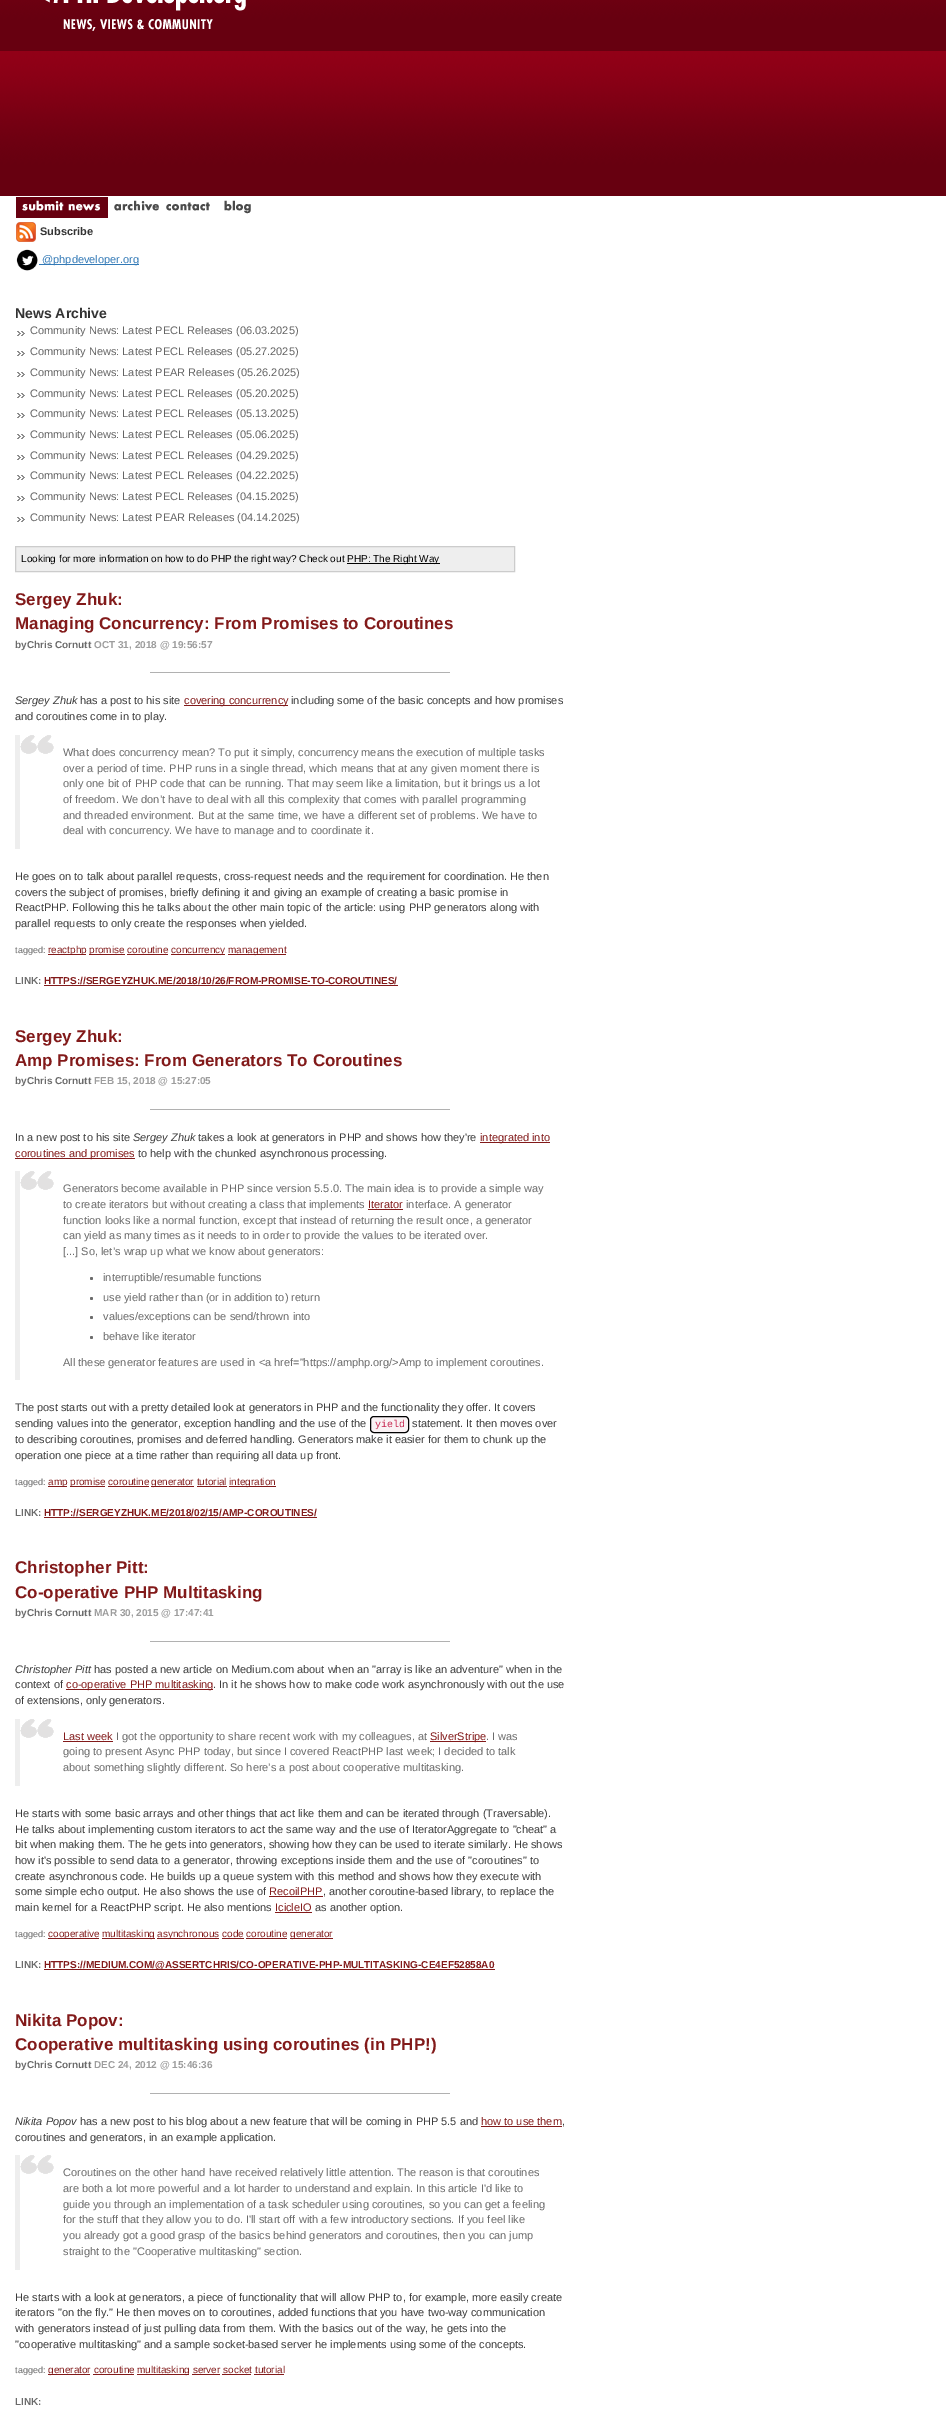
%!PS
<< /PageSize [946 2426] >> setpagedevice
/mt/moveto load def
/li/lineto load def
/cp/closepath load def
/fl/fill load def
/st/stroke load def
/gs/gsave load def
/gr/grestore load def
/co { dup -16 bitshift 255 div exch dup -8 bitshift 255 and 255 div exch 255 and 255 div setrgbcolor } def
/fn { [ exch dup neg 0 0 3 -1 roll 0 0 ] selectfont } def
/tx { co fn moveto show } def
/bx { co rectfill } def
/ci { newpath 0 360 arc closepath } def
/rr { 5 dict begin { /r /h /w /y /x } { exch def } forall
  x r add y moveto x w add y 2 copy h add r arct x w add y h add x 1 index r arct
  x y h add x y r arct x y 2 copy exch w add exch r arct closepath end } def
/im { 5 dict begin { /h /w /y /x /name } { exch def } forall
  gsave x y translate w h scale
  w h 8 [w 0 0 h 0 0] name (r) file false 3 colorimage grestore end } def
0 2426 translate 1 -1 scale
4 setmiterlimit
0 0 946 2426 16#FFFFFF bx
(media/1.raw) 0 0 946 51 im
(media/2.raw) 45 0 201 31 im
(media/3.raw) 0 51 946 145 im
(media/4.raw) 16 197 92 21 im
(media/5.raw) 114 200 45 11 im
(media/6.raw) 166 202 44 9 im
(media/7.raw) 224 200 27 14 im
(media/8.raw) 16 222 20 20 im
(media/9.raw) 16 249 22 22 im
39 264 100 1 16#337AB7 bx
(media/10.raw) 17 331 8 5 im
(media/10.raw) 17 351 8 5 im
(media/10.raw) 17 372 8 5 im
(media/10.raw) 17 393 8 5 im
(media/10.raw) 17 413 8 5 im
(media/10.raw) 17 434 8 5 im
(media/10.raw) 17 455 8 5 im
(media/10.raw) 17 475 8 5 im
(media/10.raw) 17 496 8 5 im
(media/10.raw) 17 517 8 5 im
16#EEEEEE co
15.5 546.5 mt 514.5 546.5 li 514.5 571.5 li 15.5 571.5 li cp gs fl gr
16#CCCCCC co
st
347 563 93 1 16#000000 bx
150 672 300 1 16#B1B1B1 bx
184 705 104 1 16#821A1A bx
(media/11.raw) 20 735 34 19 im
15 735 5 114 16#EEEEEE bx
48 954 38 1 16#821A1A bx
89 954 36 1 16#821A1A bx
127 954 41 1 16#821A1A bx
171 954 54 1 16#821A1A bx
228 954 58 1 16#821A1A bx
44 985 354 1 16#821A1A bx
150 1109 300 1 16#B1B1B1 bx
480 1142 70 1 16#821A1A bx
15 1158 120 1 16#821A1A bx
(media/11.raw) 20 1171 34 19 im
15 1171 5 209 16#EEEEEE bx
368 1209 35 1 16#821A1A bx
16#6B6B6B co
91.5 1278.5 1.5 ci fl
91.5 1298.5 1.5 ci fl
91.5 1317.5 1.5 ci fl
91.5 1337.5 1.5 ci fl
16#F9F2F4 co
370.5 1416.5 38 16 3.5 rr gs fl gr
16#000000 co
st
48 1486 19 1 16#821A1A bx
70 1486 35 1 16#821A1A bx
108 1486 41 1 16#821A1A bx
151 1486 43 1 16#821A1A bx
197 1486 30 1 16#821A1A bx
229 1486 47 1 16#821A1A bx
44 1517 273 1 16#821A1A bx
150 1641 300 1 16#B1B1B1 bx
66 1689 147 1 16#821A1A bx
(media/11.raw) 20 1719 34 19 im
15 1719 5 67 16#EEEEEE bx
63 1741 50 1 16#821A1A bx
430 1741 56 1 16#821A1A bx
269 1896 54 1 16#821A1A bx
275 1912 37 1 16#821A1A bx
48 1938 51 1 16#821A1A bx
102 1938 53 1 16#821A1A bx
157 1938 62 1 16#821A1A bx
222 1938 22 1 16#821A1A bx
246 1938 41 1 16#821A1A bx
290 1938 43 1 16#821A1A bx
44 1969 451 1 16#821A1A bx
150 2093 300 1 16#B1B1B1 bx
481 2126 81 1 16#821A1A bx
(media/11.raw) 20 2155 34 19 im
15 2155 5 115 16#EEEEEE bx
48 2374 42 1 16#821A1A bx
93 2374 41 1 16#821A1A bx
137 2374 52 1 16#821A1A bx
192 2374 28 1 16#821A1A bx
222 2374 29 1 16#821A1A bx
254 2374 30 1 16#821A1A bx
(Subscribe) 40 235 /LiberationSans-Bold 11 16#333333 tx
(@phpdeveloper.org) 42 263 /LiberationSans-Regular 11 16#337AB7 tx
(News Archive) 15 318 /LiberationSans-Bold 14 16#333333 tx
(Community News: Latest PECL Releases \(06.03.2025\)) 30 334 /LiberationSans-Regular 11 16#646464 tx
(Community News: Latest PECL Releases \(05.27.2025\)) 30 355 /LiberationSans-Regular 11 16#646464 tx
(Community News: Latest PEAR Releases \(05.26.2025\)) 30 376 /LiberationSans-Regular 11 16#646464 tx
(Community News: Latest PECL Releases \(05.20.2025\)) 30 397 /LiberationSans-Regular 11 16#646464 tx
(Community News: Latest PECL Releases \(05.13.2025\)) 30 417 /LiberationSans-Regular 11 16#646464 tx
(Community News: Latest PECL Releases \(05.06.2025\)) 30 438 /LiberationSans-Regular 11 16#646464 tx
(Community News: Latest PECL Releases \(04.29.2025\)) 30 459 /LiberationSans-Regular 11 16#646464 tx
(Community News: Latest PECL Releases \(04.22.2025\)) 30 479 /LiberationSans-Regular 11 16#646464 tx
(Community News: Latest PECL Releases \(04.15.2025\)) 30 500 /LiberationSans-Regular 11 16#646464 tx
(Community News: Latest PEAR Releases \(04.14.2025\)) 30 521 /LiberationSans-Regular 11 16#646464 tx
(Looking for more information on how to do PHP the right way? Check out) 21 562 /LiberationSans-Regular 10 16#000000 tx
(PHP: The Right Way) 347 562 /LiberationSans-Regular 10 16#000000 tx
(Sergey Zhuk:) 15 605 /LiberationSans-Bold 17 16#821A1A tx
(Managing Concurrency: From Promises to Coroutines) 15 629 /LiberationSans-Bold 17 16#821A1A tx
(byChris Cornutt) 15 648 /LiberationSans-Bold 10 16#6B6B6B tx
(OCT 31, 2018 @ 19:56:57) 94 648 /LiberationSans-Bold 10 16#9D9D9D tx
(Sergey Zhuk) 15 704 /LiberationSans-Italic 11 16#3C3C3C tx
(has a post to his site) 80 704 /LiberationSans-Regular 11 16#3C3C3C tx
(covering concurrency) 184 704 /LiberationSans-Regular 11 16#821A1A tx
(including some of the basic concepts and how promises) 291 704 /LiberationSans-Regular 11 16#3C3C3C tx
(and coroutines come in to play.) 15 720 /LiberationSans-Regular 11 16#3C3C3C tx
(What does concurrency mean? To put it simply, concurrency means the execution of multiple tasks) 63 756 /LiberationSans-Regular 11 16#6B6B6B tx
(over a period of time. PHP runs in a single thread, which means that at any given moment there is) 63 772 /LiberationSans-Regular 11 16#6B6B6B tx
(only one bit of PHP code that can be running. That may seem like a limitation, but it brings us a lot) 63 787 /LiberationSans-Regular 11 16#6B6B6B tx
(of freedom. We don’t have to deal with all this complexity that comes with parallel programming) 63 803 /LiberationSans-Regular 11 16#6B6B6B tx
(and threaded environment. But at the same time, we have a different set of problems. We have to) 63 819 /LiberationSans-Regular 11 16#6B6B6B tx
(deal with concurrency. We have to manage and to coordinate it.) 63 834 /LiberationSans-Regular 11 16#6B6B6B tx
(He goes on to talk about parallel requests, cross-request needs and the requirement for coordination. He then) 15 880 /LiberationSans-Regular 11 16#3C3C3C tx
(covers the subject of promises, briefly defining it and giving an example of creating a basic promise in) 15 896 /LiberationSans-Regular 11 16#3C3C3C tx
(ReactPHP. Following this he talks about the other main topic of the article: using PHP generators along with) 15 911 /LiberationSans-Regular 11 16#3C3C3C tx
(parallel requests to only create the responses when yielded.) 15 927 /LiberationSans-Regular 11 16#3C3C3C tx
(tagged:) 15 953 /LiberationSans-Regular 9 16#6B6B6B tx
(reactphp) 48 953 /LiberationSans-Regular 10 16#821A1A tx
(promise coroutine) 89 953 /LiberationSans-Regular 10 16#821A1A tx
(concurrency) 171 953 /LiberationSans-Regular 10 16#821A1A tx
(management) 228 953 /LiberationSans-Regular 10 16#821A1A tx
(LINK:) 15 984 /LiberationSans-Bold 10 16#6B6B6B tx
(HTTPS://SERGEYZHUK.ME/2018/10/26/FROM-PROMISE-TO-COROUTINES/) 44 984 /LiberationSans-Bold 10 16#821A1A tx
(Sergey Zhuk:) 15 1042 /LiberationSans-Bold 17 16#821A1A tx
(Amp Promises: From Generators To Coroutines) 15 1066 /LiberationSans-Bold 17 16#821A1A tx
(byChris Cornutt) 15 1084 /LiberationSans-Bold 10 16#6B6B6B tx
(FEB 15, 2018 @ 15:27:05) 94 1084 /LiberationSans-Bold 10 16#9D9D9D tx
(In a new post to his site) 15 1141 /LiberationSans-Regular 11 16#3C3C3C tx
(Sergey Zhuk) 133 1141 /LiberationSans-Italic 11 16#3C3C3C tx
(takes a look at generators in PHP and shows how they're) 198 1141 /LiberationSans-Regular 11 16#3C3C3C tx
(integrated into) 480 1141 /LiberationSans-Regular 11 16#821A1A tx
(coroutines and promises) 15 1157 /LiberationSans-Regular 11 16#821A1A tx
(to help with the chunked asynchronous processing.) 138 1157 /LiberationSans-Regular 11 16#3C3C3C tx
(Generators become available in PHP since version 5.5.0. The main idea is to provide a simple way) 63 1192 /LiberationSans-Regular 11 16#6B6B6B tx
(to create iterators but without creating a class that implements) 63 1208 /LiberationSans-Regular 11 16#6B6B6B tx
(Iterator) 368 1208 /LiberationSans-Regular 11 16#821A1A tx
(interface. A generator) 406 1208 /LiberationSans-Regular 11 16#6B6B6B tx
(function looks like a normal function, except that instead of returning the result once, a generator) 63 1224 /LiberationSans-Regular 11 16#6B6B6B tx
(can yield as many times as it needs to in order to provide the values to be iterated over.) 63 1239 /LiberationSans-Regular 11 16#6B6B6B tx
([...] So, let’s wrap up what we know about generators:) 63 1255 /LiberationSans-Regular 11 16#6B6B6B tx
(interruptible/resumable functions) 103 1281 /LiberationSans-Regular 11 16#6B6B6B tx
(use yield rather than \(or in addition to\) return) 103 1301 /LiberationSans-Regular 11 16#6B6B6B tx
(values/exceptions can be send/thrown into) 103 1320 /LiberationSans-Regular 11 16#6B6B6B tx
(behave like iterator) 103 1340 /LiberationSans-Regular 11 16#6B6B6B tx
(All these generator features are used in <a href="https://amphp.org/>Amp to implement coroutines.) 63 1366 /LiberationSans-Regular 11 16#6B6B6B tx
(The post starts out with a pretty detailed look at generators in PHP and the functionality they offer. It covers) 15 1411 /LiberationSans-Regular 11 16#3C3C3C tx
(sending values into the generator, exception handling and the use of the) 15 1427 /LiberationSans-Regular 11 16#3C3C3C tx
(yield) 375 1427 /LiberationMono-Regular 10 16#C7254E tx
(statement. It then moves over) 412 1427 /LiberationSans-Regular 11 16#3C3C3C tx
(to describing coroutines, promises and deferred handling. Generators make it easier for them to chunk up the) 15 1443 /LiberationSans-Regular 11 16#3C3C3C tx
(operation one piece at a time rather than requiring all data up front.) 15 1459 /LiberationSans-Regular 11 16#3C3C3C tx
(tagged:) 15 1485 /LiberationSans-Regular 9 16#6B6B6B tx
(amp) 48 1485 /LiberationSans-Regular 10 16#821A1A tx
(promise coroutine) 70 1485 /LiberationSans-Regular 10 16#821A1A tx
(generator tutorial) 151 1485 /LiberationSans-Regular 10 16#821A1A tx
(integration) 229 1485 /LiberationSans-Regular 10 16#821A1A tx
(LINK:) 15 1516 /LiberationSans-Bold 10 16#6B6B6B tx
(HTTP://SERGEYZHUK.ME/2018/02/15/AMP-COROUTINES/) 44 1516 /LiberationSans-Bold 10 16#821A1A tx
(Christopher Pitt:) 15 1573 /LiberationSans-Bold 17 16#821A1A tx
(Co-operative PHP Multitasking) 15 1598 /LiberationSans-Bold 17 16#821A1A tx
(byChris Cornutt) 15 1616 /LiberationSans-Bold 10 16#6B6B6B tx
(MAR 30, 2015 @ 17:47:41) 94 1616 /LiberationSans-Bold 10 16#9D9D9D tx
(Christopher Pitt) 15 1673 /LiberationSans-Italic 11 16#3C3C3C tx
(has posted a new article on Medium.com about when an "array is like an adventure" when in the) 94 1673 /LiberationSans-Regular 11 16#3C3C3C tx
(context of) 15 1688 /LiberationSans-Regular 11 16#3C3C3C tx
(co-operative PHP multitasking) 66 1688 /LiberationSans-Regular 11 16#821A1A tx
(. In it he shows how to make code work asynchronously with out the use) 213 1688 /LiberationSans-Regular 11 16#3C3C3C tx
(of extensions, only generators.) 15 1704 /LiberationSans-Regular 11 16#3C3C3C tx
(Last week) 63 1740 /LiberationSans-Regular 11 16#821A1A tx
(I got the opportunity to share recent work with my colleagues, at) 116 1740 /LiberationSans-Regular 11 16#6B6B6B tx
(SilverStripe) 430 1740 /LiberationSans-Regular 11 16#821A1A tx
(. I was) 486 1740 /LiberationSans-Regular 11 16#6B6B6B tx
(going to present Async PHP today, but since I covered ReactPHP last week; I decided to talk) 63 1755 /LiberationSans-Regular 11 16#6B6B6B tx
(about something slightly different. So here’s a post about cooperative multitasking.) 63 1771 /LiberationSans-Regular 11 16#6B6B6B tx
(He starts with some basic arrays and other things that act like them and can be iterated through \(Traversable\).) 15 1817 /LiberationSans-Regular 11 16#3C3C3C tx
(He talks about implementing custom iterators to act the same way and the use of IteratorAggregate to "cheat" a) 15 1833 /LiberationSans-Regular 11 16#3C3C3C tx
(bit when making them. The he gets into generators, showing how they can be used to iterate similarly. He shows) 15 1848 /LiberationSans-Regular 11 16#3C3C3C tx
(how it's possible to send data to a generator, throwing exceptions inside them and the use of "coroutines" to) 15 1864 /LiberationSans-Regular 11 16#3C3C3C tx
(create asynchronous code. He builds up a queue system with this method and shows how they execute with) 15 1880 /LiberationSans-Regular 11 16#3C3C3C tx
(some simple echo output. He also shows the use of) 15 1895 /LiberationSans-Regular 11 16#3C3C3C tx
(RecoilPHP) 269 1895 /LiberationSans-Regular 11 16#821A1A tx
(, another coroutine-based library, to replace the) 323 1895 /LiberationSans-Regular 11 16#3C3C3C tx
(main kernel for a ReactPHP script. He also mentions) 15 1911 /LiberationSans-Regular 11 16#3C3C3C tx
(IcicleIO) 275 1911 /LiberationSans-Regular 11 16#821A1A tx
(as another option.) 315 1911 /LiberationSans-Regular 11 16#3C3C3C tx
(tagged:) 15 1937 /LiberationSans-Regular 9 16#6B6B6B tx
(cooperative) 48 1937 /LiberationSans-Regular 10 16#821A1A tx
(multitasking) 102 1937 /LiberationSans-Regular 10 16#821A1A tx
(asynchronous code coroutine) 157 1937 /LiberationSans-Regular 10 16#821A1A tx
(generator) 290 1937 /LiberationSans-Regular 10 16#821A1A tx
(LINK:) 15 1968 /LiberationSans-Bold 10 16#6B6B6B tx
(HTTPS://MEDIUM.COM/@ASSERTCHRIS/CO-OPERATIVE-PHP-MULTITASKING-CE4EF52858A0) 44 1968 /LiberationSans-Bold 10 16#821A1A tx
(Nikita Popov:) 15 2026 /LiberationSans-Bold 17 16#821A1A tx
(Cooperative multitasking using coroutines \(in PHP!\)) 15 2050 /LiberationSans-Bold 17 16#821A1A tx
(byChris Cornutt) 15 2068 /LiberationSans-Bold 10 16#6B6B6B tx
(DEC 24, 2012 @ 15:46:36) 94 2068 /LiberationSans-Bold 10 16#9D9D9D tx
(Nikita Popov) 15 2125 /LiberationSans-Italic 11 16#3C3C3C tx
(has a new post to his blog about a new feature that will be coming in PHP 5.5 and) 80 2125 /LiberationSans-Regular 11 16#3C3C3C tx
(how to use them) 481 2125 /LiberationSans-Regular 11 16#821A1A tx
(,) 562 2125 /LiberationSans-Regular 11 16#3C3C3C tx
(coroutines and generators, in an example application.) 15 2141 /LiberationSans-Regular 11 16#3C3C3C tx
(Coroutines on the other hand have received relatively little attention. The reason is that coroutines) 63 2176 /LiberationSans-Regular 11 16#6B6B6B tx
(are both a lot more powerful and a lot harder to understand and explain. In this article I'd like to) 63 2192 /LiberationSans-Regular 11 16#6B6B6B tx
(guide you through an implementation of a task scheduler using coroutines, so you can get a feeling) 63 2208 /LiberationSans-Regular 11 16#6B6B6B tx
(for the stuff that they allow you to do. I'll start off with a few introductory sections. If you feel like) 63 2223 /LiberationSans-Regular 11 16#6B6B6B tx
(you already got a good grasp of the basics behind generators and coroutines, then you can jump) 63 2239 /LiberationSans-Regular 11 16#6B6B6B tx
(straight to the "Cooperative multitasking" section.) 63 2255 /LiberationSans-Regular 11 16#6B6B6B tx
(He starts with a look at generators, a piece of functionality that will allow PHP to, for example, more easily create) 15 2301 /LiberationSans-Regular 11 16#3C3C3C tx
(iterators "on the fly." He then moves on to coroutines, added functions that you have two-way communication) 15 2316 /LiberationSans-Regular 11 16#3C3C3C tx
(with generators instead of just pulling data from them. With the basics out of the way, he gets into the) 15 2332 /LiberationSans-Regular 11 16#3C3C3C tx
("cooperative multitasking" and a sample socket-based server he implements using some of the concepts.) 15 2348 /LiberationSans-Regular 11 16#3C3C3C tx
(tagged:) 15 2373 /LiberationSans-Regular 9 16#6B6B6B tx
(generator coroutine) 48 2373 /LiberationSans-Regular 10 16#821A1A tx
(multitasking server socket tutorial) 137 2373 /LiberationSans-Regular 10 16#821A1A tx
(LINK:) 15 2405 /LiberationSans-Bold 10 16#6B6B6B tx
showpage
